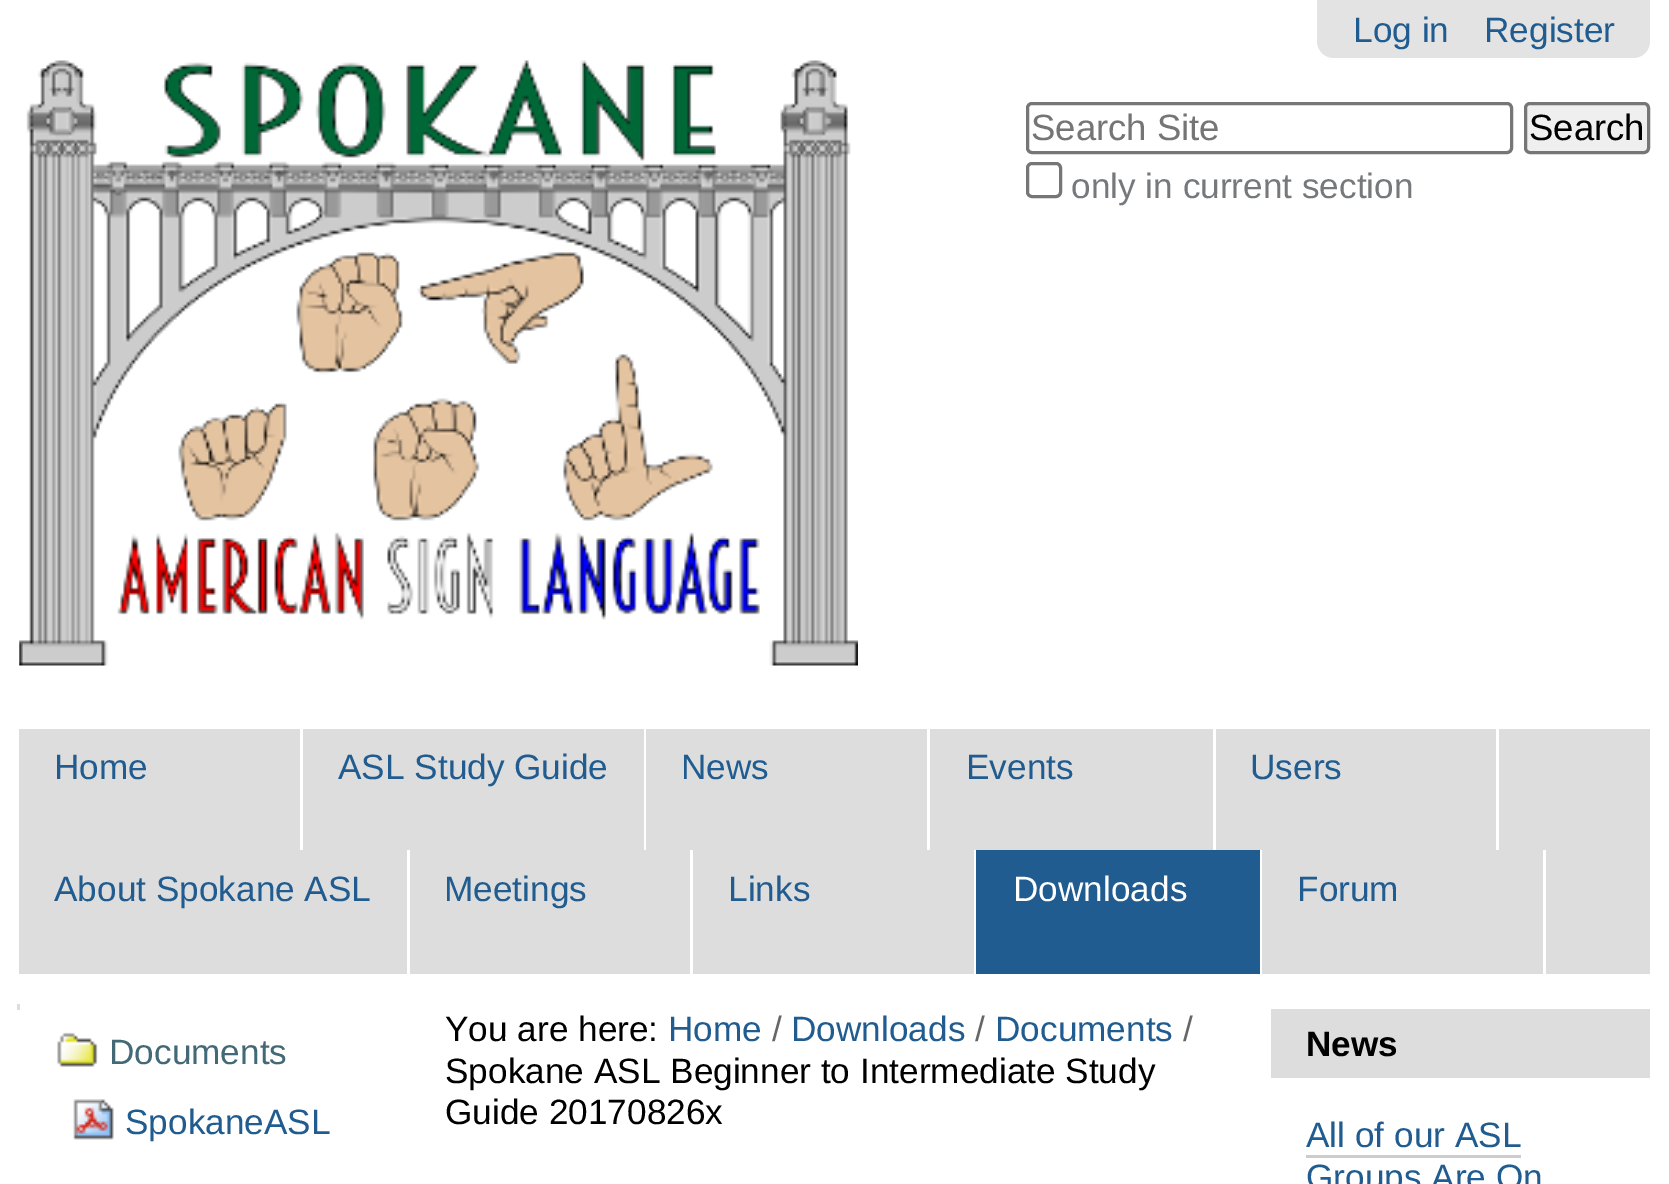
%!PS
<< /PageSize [1669 1184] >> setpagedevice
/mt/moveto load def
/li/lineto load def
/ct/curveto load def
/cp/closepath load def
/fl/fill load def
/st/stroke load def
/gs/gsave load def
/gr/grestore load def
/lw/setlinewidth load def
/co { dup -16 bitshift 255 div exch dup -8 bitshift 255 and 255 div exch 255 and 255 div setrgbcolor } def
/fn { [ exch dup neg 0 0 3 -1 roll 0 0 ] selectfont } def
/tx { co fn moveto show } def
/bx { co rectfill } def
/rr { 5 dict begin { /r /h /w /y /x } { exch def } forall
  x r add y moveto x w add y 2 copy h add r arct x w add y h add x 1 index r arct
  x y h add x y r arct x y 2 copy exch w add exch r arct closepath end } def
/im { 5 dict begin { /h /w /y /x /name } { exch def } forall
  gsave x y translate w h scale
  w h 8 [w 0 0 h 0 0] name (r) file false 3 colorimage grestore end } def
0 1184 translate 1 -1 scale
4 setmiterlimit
0 0 1669 1184 16#FFFFFF bx
16#E3E3E3 co
1317 0 mt 1650 0 li 1650 41 li 1650 50.5 1642.5 58 1633 58 ct 1334 58 li 1324.5 58 1317 50.5 1317 41 ct cp fl
(media/1.raw) 19 60 839 606 im
16#767676 co
3 lw
1027.5 103.5 484 49 4.5 rr st
16#EFEFEF co
1525.5 103.5 123 49 4.5 rr gs fl gr
16#767676 co
st
1027.5 163.5 33 33 4.5 rr st
19 729 1631 245 16#DDDDDD bx
300 729 3 121 16#FFFFFF bx
644 729 2 121 16#FFFFFF bx
927 729 3 121 16#FFFFFF bx
1213 729 3 121 16#FFFFFF bx
1496 729 3 121 16#FFFFFF bx
407 850 3 124 16#FFFFFF bx
690 850 3 124 16#FFFFFF bx
974 850 2 124 16#FFFFFF bx
976 850 284 124 16#205C90 bx
1260 850 2 124 16#FFFFFF bx
1543 850 3 124 16#FFFFFF bx
17 1004 3 6 16#DDDDDD bx
(media/2.raw) 57 1032 41 35 im
(media/3.raw) 73 1099 41 41 im
1271 1009 379 69 16#DDDDDD bx
1306 1155 215 3 16#CCCCCC bx
(Log in) 1353 42 /LiberationSans-Regular 35.2 16#205C90 tx
(Register) 1484 42 /LiberationSans-Regular 35.2 16#205C90 tx
(Search Site) 1031 140 /LiberationSans-Regular 36.5 16#757575 tx
(Search) 1529 140 /LiberationSans-Regular 36.5 16#000000 tx
(only in current section) 1071 198 /LiberationSans-Regular 35.2 16#76797C tx
(Home) 54 779 /LiberationSans-Regular 35.2 16#205C90 tx
(ASL Study Guide) 338 779 /LiberationSans-Regular 35.2 16#205C90 tx
(News) 681 779 /LiberationSans-Regular 35.2 16#205C90 tx
(Events) 966 779 /LiberationSans-Regular 35.2 16#205C90 tx
(Users) 1250 779 /LiberationSans-Regular 35.2 16#205C90 tx
(About Spokane ASL) 54 901 /LiberationSans-Regular 35.2 16#205C90 tx
(Meetings) 444 901 /LiberationSans-Regular 35.2 16#205C90 tx
(Links) 728 901 /LiberationSans-Regular 35.2 16#205C90 tx
(Downloads) 1013 901 /LiberationSans-Regular 35.2 16#FFFFFF tx
(Forum) 1297 901 /LiberationSans-Regular 35.2 16#205C90 tx
(Documents) 109 1064 /LiberationSans-Regular 35.2 16#436976 tx
(SpokaneASL) 125 1134 /LiberationSans-Regular 35.2 16#205C90 tx
(You are here:) 445 1041 /LiberationSans-Regular 35.2 16#000000 tx
(Home) 668 1041 /LiberationSans-Regular 35.2 16#205C90 tx
(/) 772 1041 /LiberationSans-Regular 35.2 16#666666 tx
(Downloads) 791 1041 /LiberationSans-Regular 35.2 16#205C90 tx
(/) 975 1041 /LiberationSans-Regular 35.2 16#666666 tx
(Documents) 995 1041 /LiberationSans-Regular 35.2 16#205C90 tx
(/) 1183 1041 /LiberationSans-Regular 35.2 16#666666 tx
(Spokane ASL Beginner to Intermediate Study) 445 1083 /LiberationSans-Regular 35.2 16#000000 tx
(Guide 20170826x) 445 1124 /LiberationSans-Regular 35.2 16#000000 tx
(News) 1306 1056 /LiberationSans-Bold 35.2 16#000000 tx
(All of our ASL) 1306 1147 /LiberationSans-Regular 35.2 16#205C90 tx
(Groups Are On) 1306 1189 /LiberationSans-Regular 35.2 16#205C90 tx
showpage
